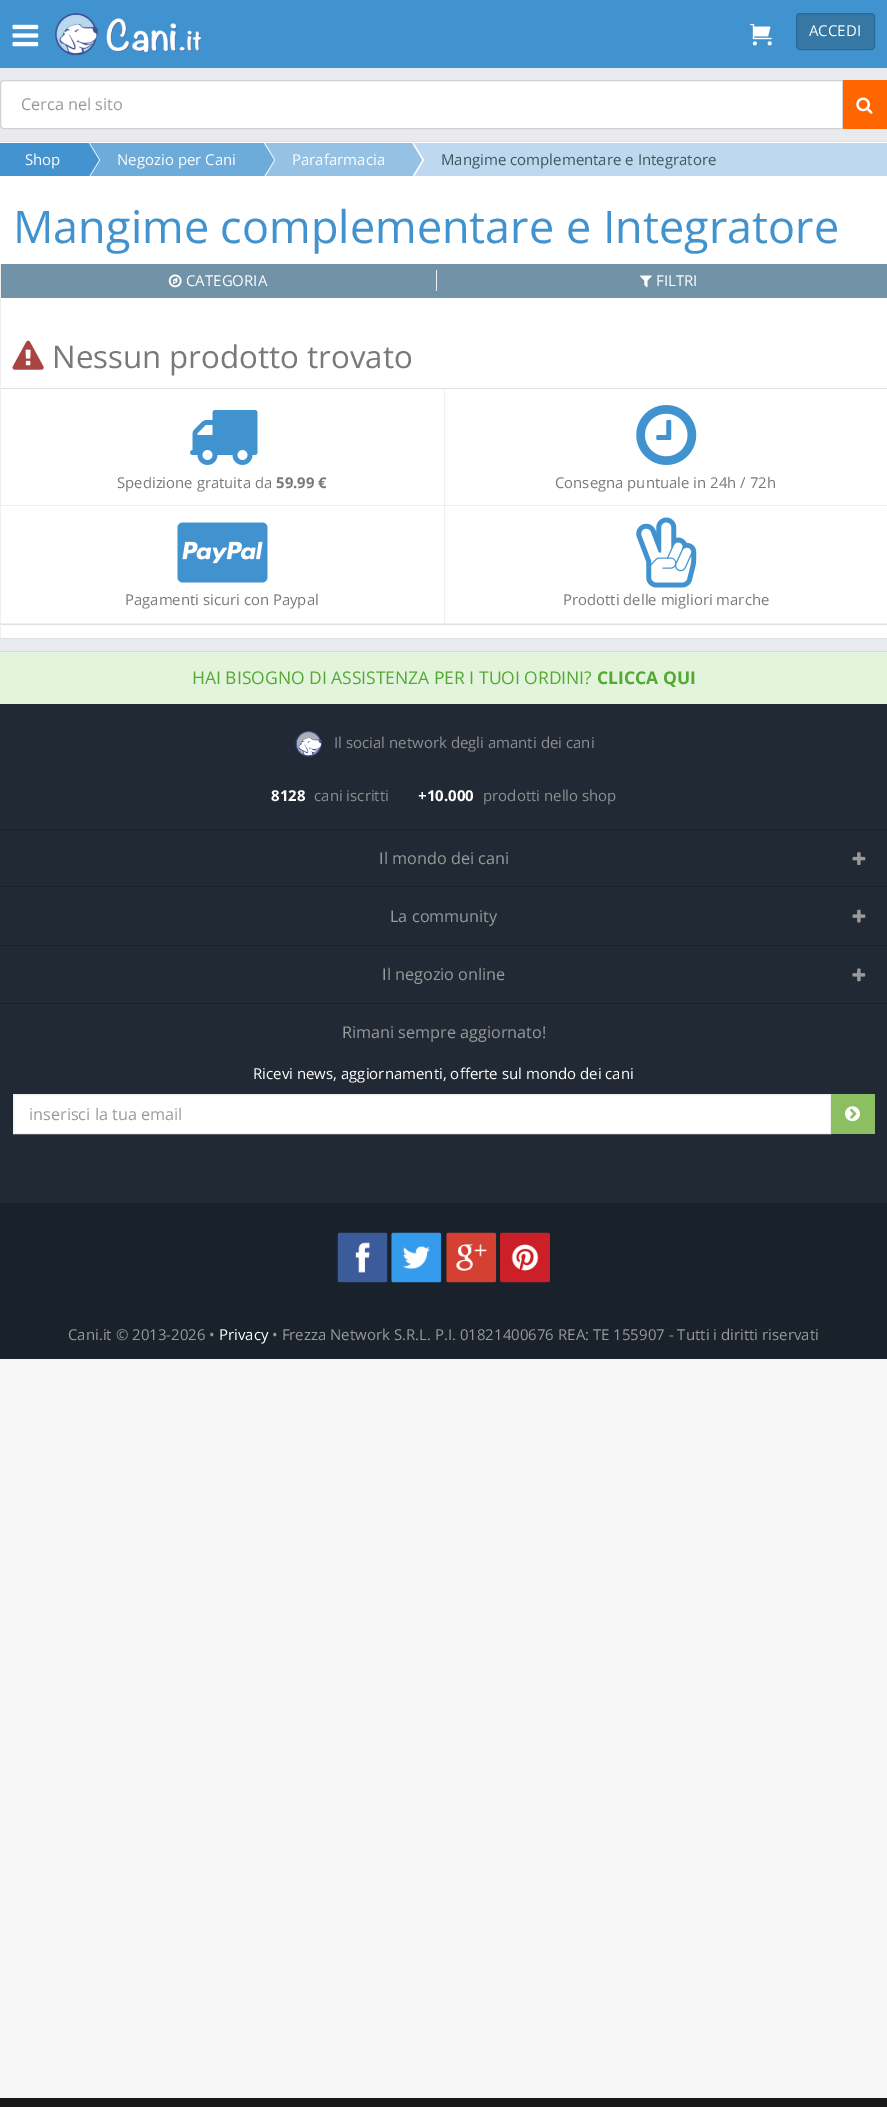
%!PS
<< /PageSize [887 2107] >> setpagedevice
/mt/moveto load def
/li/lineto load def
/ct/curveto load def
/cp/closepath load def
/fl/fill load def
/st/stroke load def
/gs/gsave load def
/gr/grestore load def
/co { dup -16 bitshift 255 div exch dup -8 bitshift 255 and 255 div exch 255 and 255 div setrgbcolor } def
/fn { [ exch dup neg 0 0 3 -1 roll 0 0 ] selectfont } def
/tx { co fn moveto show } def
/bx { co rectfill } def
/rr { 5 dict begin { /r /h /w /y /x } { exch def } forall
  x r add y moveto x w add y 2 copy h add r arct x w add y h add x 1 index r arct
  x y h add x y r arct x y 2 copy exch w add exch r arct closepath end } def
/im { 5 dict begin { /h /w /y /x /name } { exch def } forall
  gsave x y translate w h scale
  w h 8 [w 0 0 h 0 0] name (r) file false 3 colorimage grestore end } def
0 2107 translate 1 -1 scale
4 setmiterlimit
0 0 887 2107 16#F6F6F6 bx
0 0 887 68 16#4193D0 bx
(media/1.raw) 12 24 27 23 im
(media/2.raw) 55 13 147 43 im
(media/3.raw) 750 24 22 22 im
16#3677A4 co
796.5 13.5 78 36 3.5 rr gs fl gr
16#286A99 co
st
0 68 887 583 16#E9EAED bx
16#FFFFFF co
4 80.5 mt 842.5 80.5 li 842.5 128.5 li 4 128.5 li 2 128.5 .5 127 .5 125 ct .5 84 li .5 82 2 80.5 4 80.5 ct cp gs fl gr
16#D2D2D2 co
st
843 80 44 49 16#FF6600 bx
(media/4.raw) 856 97 17 17 im
0 142 887 496 16#FFFFFF bx
0 141 887 1 16#E0E0E0 bx
0 638 887 1 16#E0E0E0 bx
413 143 474 33 16#BED9EF bx
0 143 61 33 16#4393D0 bx
89 143 147 33 16#6CABDA bx
gs
0 143 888 33 rectclip
16#FFFFFF co
62 222 mt 62 98 li 100 160 li cp fl
16#4393D0 co
61 222 mt 61 98 li 99 160 li cp fl
gr
264 143 121 33 16#95C2E4 bx
gs
0 143 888 33 rectclip
16#FFFFFF co
238 222 mt 238 98 li 275 160 li cp fl
16#6CABDA co
236 222 mt 236 98 li 274 160 li cp fl
16#FFFFFF co
386 222 mt 386 98 li 424 160 li cp fl
16#95C2E4 co
385 222 mt 385 98 li 422 160 li cp fl
gr
1 264 886 34 16#7192A7 bx
436 270 1 21 16#EFEFEF bx
(media/5.raw) 168 274 14 14 im
(media/6.raw) 640 275 12 13 im
0 388 887 1 16#E0E0E0 bx
0 624 887 1 16#E0E0E0 bx
0 505 887 1 16#EFEFEF bx
0 623 887 1 16#EFEFEF bx
0 264 1 374 16#EFEFEF bx
(media/7.raw) 12 340 32 30 im
(media/8.raw) 190 410 68 55 im
444 389 1 235 16#EFEFEF bx
(media/9.raw) 636 405 61 60 im
(media/10.raw) 177 522 91 61 im
(media/11.raw) 636 517 61 71 im
0 704 887 499 16#212A34 bx
0 652 887 52 16#E3F4DC bx
0 651 887 1 16#CFDEC9 bx
(media/12.raw) 295 731 27 26 im
0 829 887 1 16#17232C bx
(media/13.raw) 852 852 14 13 im
0 886 887 1 16#17232C bx
(media/14.raw) 852 909 14 14 im
0 945 887 1 16#17232C bx
(media/15.raw) 852 968 14 14 im
0 1003 887 1 16#17232C bx
16#FFFFFF co
13.5 1094.5 mt 830.5 1094.5 li 830.5 1133.5 li 13.5 1133.5 li cp gs fl gr
16#EFEFEF co
st
831 1094 44 40 16#8BBF61 bx
(media/16.raw) 845 1106 15 16 im
0 1203 887 156 16#19212A bx
(media/17.raw) 337 1232 51 51 im
(media/18.raw) 391 1232 51 51 im
(media/19.raw) 446 1232 51 51 im
(media/20.raw) 500 1232 50 51 im
0 2098 887 9 16#191919 bx
(ACCEDI) 809 36 /OpenSans-Regular 15 16#FFFFFF tx
(Cerca nel sito) 21 110 /OpenSans-Regular 16.25 16#999999 tx
(Shop) 25 165 /OpenSans-Regular 15 16#FFFFFF tx
(Negozio per Cani) 117 165 /OpenSans-Regular 15 16#FFFFFF tx
(Parafarmacia) 292 165 /OpenSans-Regular 15 16#FFFFFF tx
(Mangime complementare e Integratore) 441 165 /OpenSans-Regular 15 16#3C575B tx
(Mangime complementare e Integratore) 13 243 /OpenSans-Regular 45 16#4193D0 tx
(CATEGORIA) 186 286 /OpenSans-Regular 15 16#FFFFFF tx
(FILTRI) 656 286 /OpenSans-Regular 15 16#FFFFFF tx
(Nessun prodotto trovato) 52 368 /OpenSans-Regular 31.25 16#797979 tx
(Spedizione gratuita da) 117 488 /OpenSans-Regular 14.9 16#797979 tx
(59.99 €) 276 488 /OpenSans-Bold 14.9 16#797979 tx
(Consegna puntuale in 24h / 72h) 555 488 /OpenSans-Regular 14.9 16#797979 tx
(Pagamenti sicuri con Paypal) 125 605 /OpenSans-Regular 14.9 16#797979 tx
(Prodotti delle migliori marche) 563 605 /OpenSans-Regular 14.9 16#797979 tx
(HAI BISOGNO DI ASSISTENZA PER I TUOI ORDINI?) 192 684 /OpenSans-Regular 17.5 16#55A833 tx
(CLICCA QUI) 597 684 /OpenSans-Bold 17.5 16#55A833 tx
(Il social network degli amanti dei cani) 334 748 /OpenSans-Regular 15 16#8E8E8E tx
(8128) 271 801 /OpenSans-Bold 15 16#FFFFFF tx
(cani iscritti) 314 801 /OpenSans-Regular 15 16#8E8E8E tx
(+10.000) 418 801 /OpenSans-Bold 15 16#FFFFFF tx
(prodotti nello shop) 483 801 /OpenSans-Regular 15 16#8E8E8E tx
(Il mondo dei cani) 379 864 /OpenSans-Regular 16.25 16#999999 tx
(La community) 390 922 /OpenSans-Regular 16.25 16#999999 tx
(Il negozio online) 382 980 /OpenSans-Regular 16.25 16#999999 tx
(Rimani sempre aggiornato!) 342 1038 /OpenSans-Regular 16.25 16#999999 tx
(Ricevi news, aggiornamenti, offerte sul mondo dei cani) 253 1079 /OpenSans-Regular 15 16#FFFFFF tx
(inserisci la tua email) 29 1120 /OpenSans-Regular 16.25 16#999999 tx
(Cani.it © 2013-2026 •) 68 1340 /OpenSans-Regular 15 16#999999 tx
(Privacy) 219 1340 /OpenSans-Regular 15 16#FFFFFF tx
(• Frezza Network S.R.L. P.I. 01821400676 REA: TE 155907 - Tutti i diritti riservati) 272 1340 /OpenSans-Regular 15 16#999999 tx
showpage
